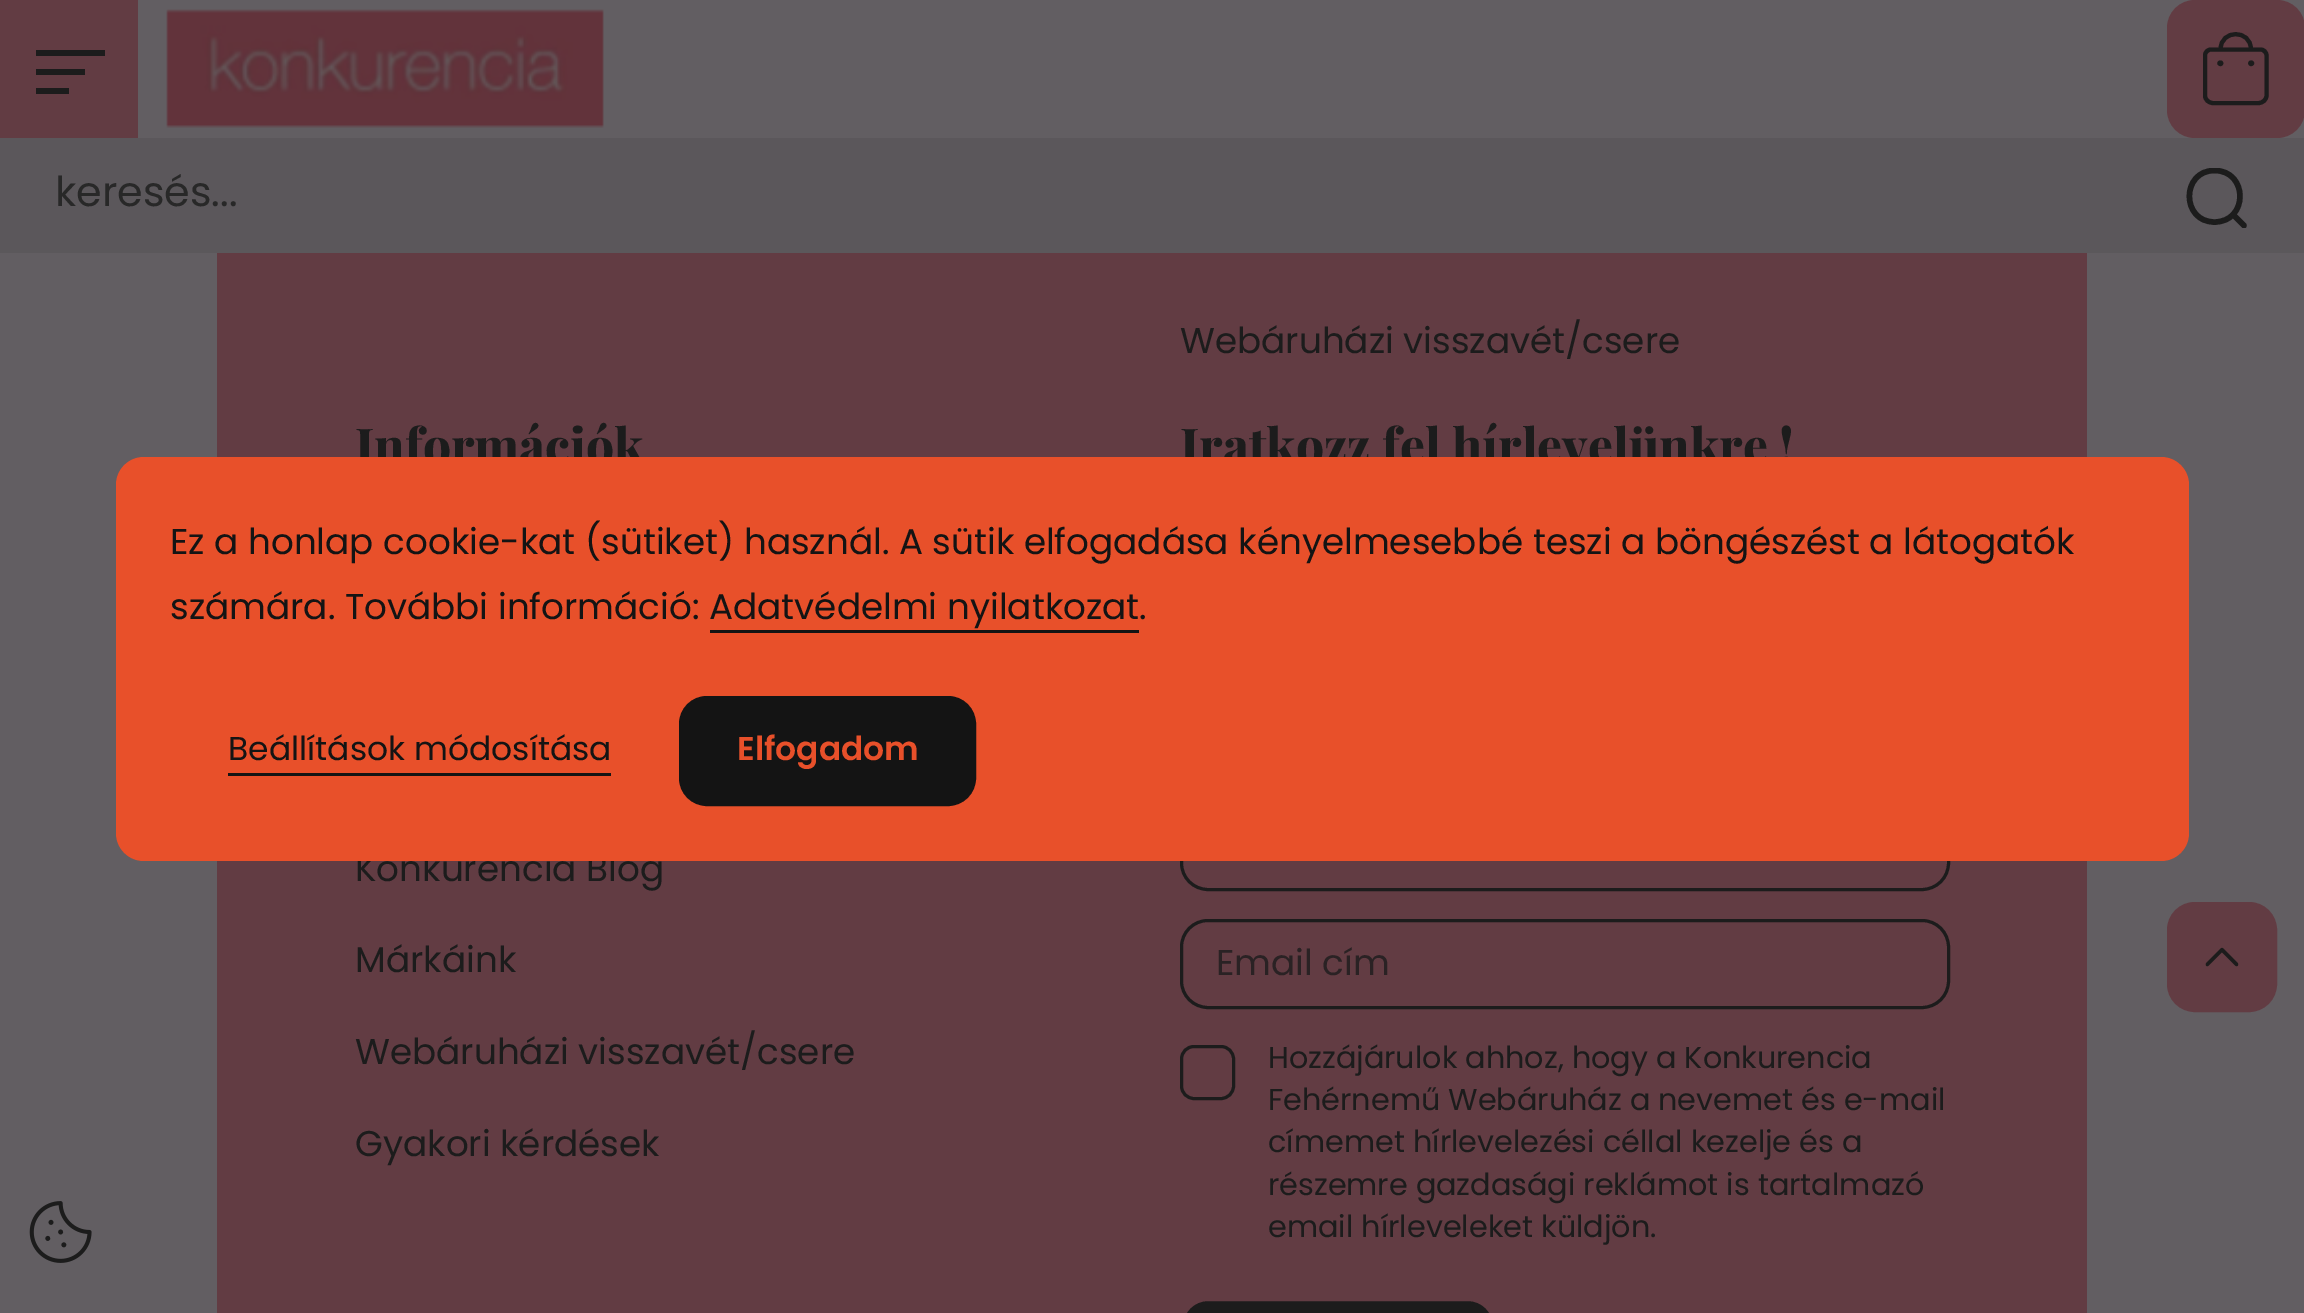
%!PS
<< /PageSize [2304 1313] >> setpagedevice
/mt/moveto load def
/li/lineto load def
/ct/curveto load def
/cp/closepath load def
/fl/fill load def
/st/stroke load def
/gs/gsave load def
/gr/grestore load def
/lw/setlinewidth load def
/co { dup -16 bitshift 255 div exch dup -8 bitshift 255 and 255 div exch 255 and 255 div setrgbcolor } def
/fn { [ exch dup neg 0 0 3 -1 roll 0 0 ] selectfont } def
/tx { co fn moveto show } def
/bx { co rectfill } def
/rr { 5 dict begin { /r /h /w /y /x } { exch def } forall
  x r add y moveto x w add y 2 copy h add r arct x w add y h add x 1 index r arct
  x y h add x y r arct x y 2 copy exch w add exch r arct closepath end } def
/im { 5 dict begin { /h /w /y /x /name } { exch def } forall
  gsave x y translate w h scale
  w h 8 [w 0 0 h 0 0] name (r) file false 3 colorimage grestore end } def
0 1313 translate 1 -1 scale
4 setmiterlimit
0 0 2304 1313 16#625E62 bx
0 250 2304 3 16#5B585B bx
0 0 138 138 16#623C43 bx
36 50 69 6 16#1C1C1C bx
36 69 49 6 16#1C1C1C bx
36 88 33 6 16#1C1C1C bx
(media/1.raw) 166 9 438 119 im
16#623C43 co
2168.5 1.5 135 135 26.5 rr gs fl gr
3 lw
st
16#1C1C1C co
4.1 lw
1 setlinecap
1 setlinejoin
2220.5 49.5 mt 2220.5 29 2251 29 2251 49.5 ct 2258.5 103 mt 2213 103 li 2208.5 103 2205 99.5 2205 95.5 ct 2205 55.5 li 2205 52 2208 49.5 2211 49.5 ct 2260.5 49.5 li 2263.5 49.5 2266.5 52 2266.5 55.5 ct 2266.5 95.5 li 2266.5 99.5 2263 103 2258.5 103 ct cp 2251 62.5 mt 2250 62.5 2250 64 2251 64 ct 2252.5 64 2252.5 62.5 2251 62.5 ct cp 2220.5 62.5 mt 2219 62.5 2219 64 2220.5 64 ct 2221.5 64 2221.5 62.5 2220.5 62.5 ct cp st
0 138 2304 112 16#5B575B bx
gs
2186 168 61 60 rectclip
16#1C1C1C co
5.5 lw
2244 225.5 mt 2233 214.5 li 2214.5 222 mt 2181 222 2181 170.5 2214.5 170.5 ct 2248.5 170.5 2248.5 222 2214.5 222 ct cp st
gr
217 253 1870 1060 16#623C43 bx
16#1C1C1C co
3 lw
0 setlinecap
0 setlinejoin
1181.5 799.5 767 90 26.5 rr st
1181.5 920.5 767 87 26.5 rr st
1181.5 1046.5 52 52 12.5 rr st
1181.5 1299.5 313 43 26.5 rr gs fl gr
16#623C43 co
st
2168.5 903.5 107 107 26.5 rr gs fl gr
st
(media/2.raw) 2205 947 34 20 im
(media/3.raw) 29 1201 63 62 im
(keresés...) 55 206 /Poppins-Regular 41.25 16#282828 tx
(Webáruházi visszavét/csere) 1180 353 /Poppins-Regular 35.75 16#1C1C1C tx
(Információk) 355 464 /PlayfairDisplay-ExtraBold 49.5 16#1C1C1C tx
(Konkurencia Blog) 355 881 /Poppins-Regular 35.75 16#1C1C1C tx
(Márkáink) 355 972 /Poppins-Regular 35.75 16#1C1C1C tx
(Webáruházi visszavét/csere) 355 1064 /Poppins-Regular 35.75 16#1C1C1C tx
(Gyakori kérdések) 355 1156 /Poppins-Regular 35.75 16#1C1C1C tx
(Iratkozz fel hírlevelünkre !) 1180 464 /PlayfairDisplay-ExtraBold 49.5 16#1C1C1C tx
(Email cím) 1216 975 /Poppins-Regular 35.75 16#2A2224 tx
(Hozzájárulok ahhoz, hogy a Konkurencia) 1268 1068 /Poppins-Regular 30.25 16#1C1C1C tx
(Fehérnemű Webáruház a nevemet és e-mail) 1268 1110 /Poppins-Regular 30.25 16#1C1C1C tx
(címemet hírlevelezési céllal kezelje és a) 1268 1152 /Poppins-Regular 30.25 16#1C1C1C tx
(részemre gazdasági reklámot is tartalmazó) 1268 1195 /Poppins-Regular 30.25 16#1C1C1C tx
(email hírleveleket küldjön.) 1268 1237 /Poppins-Regular 30.25 16#1C1C1C tx
16#E8502A co
116 457 2073 404 28 rr fl
(Ez a honlap cookie-kat \(sütiket\) használ. A sütik elfogadása kényelmesebbé teszi a böngészést a látogatók) 170 554 /Poppins-Regular 35.75 16#141414 tx
(számára. További információ: Adatvédelmi nyilatkozat.) 170 619 /Poppins-Regular 35.75 16#141414 tx
710 630 429 3 16#141414 bx
(Beállítások módosítása) 228 760 /Poppins-Regular 33 16#141414 tx
228 773 383 3 16#141414 bx
680.5 697.5 294 107 26.5 rr gs fl gr
st
(Elfogadom) 737 760 /Poppins-SemiBold 33 16#E8502A tx
showpage
